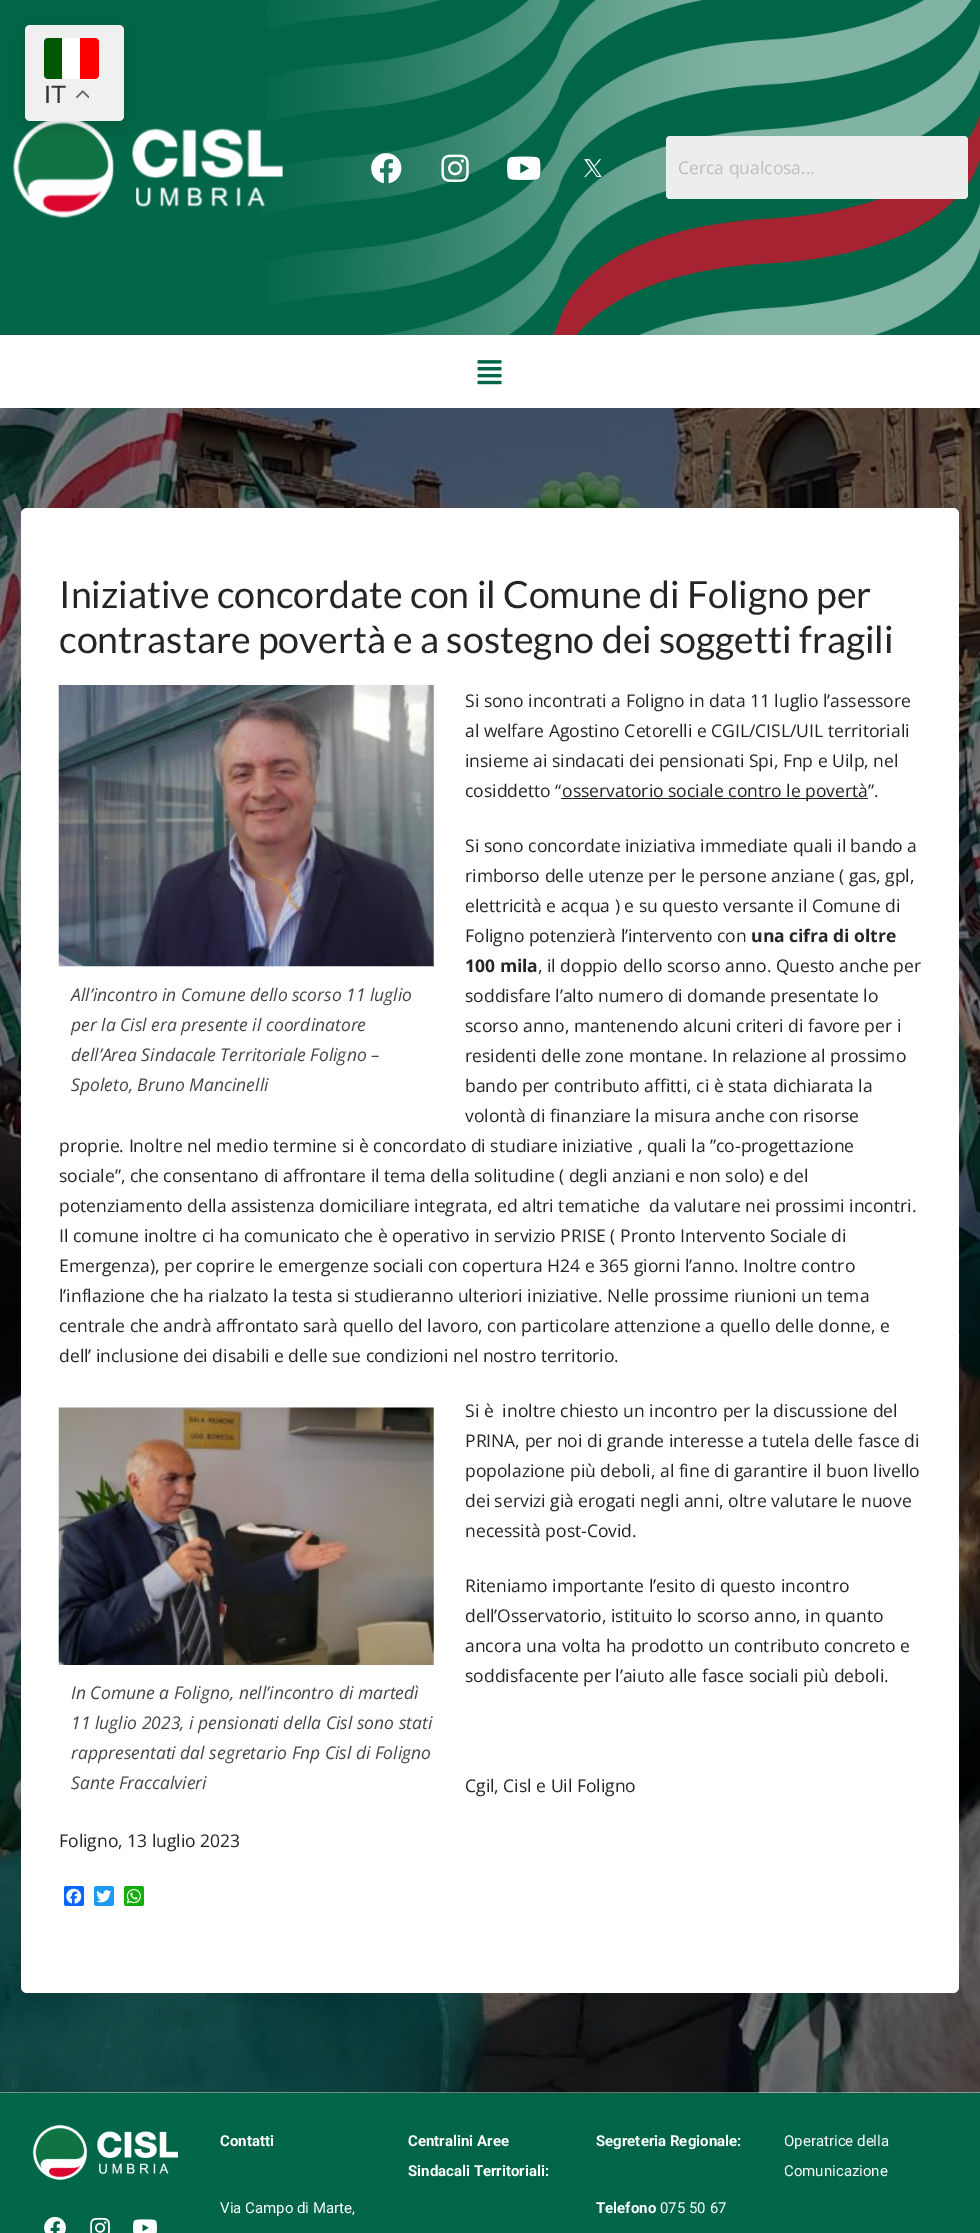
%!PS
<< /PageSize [980 2233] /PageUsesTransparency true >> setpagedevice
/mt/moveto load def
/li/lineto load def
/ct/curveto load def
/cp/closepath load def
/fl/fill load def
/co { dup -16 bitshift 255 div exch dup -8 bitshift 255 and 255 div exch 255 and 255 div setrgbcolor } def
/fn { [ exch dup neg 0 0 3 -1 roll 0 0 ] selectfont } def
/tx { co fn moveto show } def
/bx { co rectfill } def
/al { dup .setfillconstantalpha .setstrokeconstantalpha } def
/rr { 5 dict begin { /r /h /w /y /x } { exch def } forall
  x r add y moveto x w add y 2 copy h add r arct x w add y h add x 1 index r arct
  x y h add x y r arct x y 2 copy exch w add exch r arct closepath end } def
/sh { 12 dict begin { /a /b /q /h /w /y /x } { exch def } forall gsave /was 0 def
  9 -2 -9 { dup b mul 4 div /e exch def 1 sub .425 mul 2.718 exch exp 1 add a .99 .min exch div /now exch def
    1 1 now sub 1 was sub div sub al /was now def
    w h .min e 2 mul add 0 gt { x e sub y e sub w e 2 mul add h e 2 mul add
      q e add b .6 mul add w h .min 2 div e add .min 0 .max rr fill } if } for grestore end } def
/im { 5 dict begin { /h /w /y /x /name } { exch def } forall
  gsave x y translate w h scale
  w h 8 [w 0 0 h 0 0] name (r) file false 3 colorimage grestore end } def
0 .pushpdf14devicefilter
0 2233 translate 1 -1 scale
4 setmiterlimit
0 0 980 2233 16#FFFFFF bx
0 0 980 335 16#016648 bx
(media/2.raw) 267 0 713 335 im
(media/3.raw) 12 121 271 97 im
16#000000 co
25 31 99 97 5 9.5 .15 sh
16#F0F0F0 co
25 25 99 96 5 rr fl
16#FFFFFF co
44 38 55 41 4 rr fl
16#005700 co
48 38 mt 62 38 li 62 79 li 48 79 li 46 79 44 77 44 75 ct 44 42 li 44 40 46 38 48 38 ct cp fl
16#FC0000 co
80 38 mt 95 38 li 97 38 99 40 99 42 ct 99 75 li 99 77 97 79 95 79 ct 80 79 li cp fl
(media/1.raw) 76 90 13 9 im
(media/4.raw) 371 153 31 31 im
(media/5.raw) 441 154 28 28 im
(media/6.raw) 507 156 34 24 im
(media/7.raw) 584 159 18 19 im
16#EDEDED co
666 136 302 63 4 rr fl
(media/8.raw) 477 360 25 25 im
(media/9.raw) 0 408 980 1685 im
16#FFFFFF co
21 508 938 1485 6 rr fl
561 798 307 1 16#212121 bx
(media/10.raw) 58 685 376 282 im
(media/11.raw) 58 1407 376 258 im
16#0866FF co
64 1886 20 20 2.5 rr fl
(media/12.raw) 66 1888 16 16 im
16#1D9BF0 co
94 1886 20 20 2.5 rr fl
(media/13.raw) 96 1890 16 13 im
16#12AF0A co
124 1886 20 20 2.5 rr fl
(media/14.raw) 126 1889 15 15 im
0 2093 980 140 16#016648 bx
(media/15.raw) 32 2125 146 55 im
(media/16.raw) 44 2216 22 17 im
(media/17.raw) 90 2218 20 15 im
(media/18.raw) 133 2219 24 14 im
(IT) 44 103 /LiberationSans-Regular 25 16#333333 tx
(Cerca qualcosa...) 678 174 /OpenSans-Regular 17.5 16#BDBDBD tx
(Iniziative concordate con il Comune di Foligno per) 59 608 /Lato-Regular 37.5 16#252525 tx
(contrastare povertà e a sostegno dei soggetti fragili) 59 653 /Lato-Regular 37.5 16#252525 tx
(Si sono incontrati a Foligno in data 11 luglio l’assessore) 465 707 /OpenSans-Regular 17.5 16#252525 tx
(al welfare Agostino Cetorelli e CGIL/CISL/UIL territoriali) 465 737 /OpenSans-Regular 17.5 16#252525 tx
(insieme ai sindacati dei pensionati Spi, Fnp e Uilp, nel) 465 767 /OpenSans-Regular 17.5 16#252525 tx
(cosiddetto “) 465 797 /OpenSans-Regular 17.5 16#252525 tx
(osservatorio sociale contro le povertà”.) 562 797 /OpenSans-Regular 17.5 16#252525 tx
(Si sono concordate iniziativa immediate quali il bando a) 465 852 /OpenSans-Regular 17.5 16#252525 tx
(rimborso delle utenze per le persone anziane \( gas, gpl,) 465 882 /OpenSans-Regular 17.5 16#252525 tx
(elettricità e acqua \) e su questo versante il Comune di) 465 912 /OpenSans-Regular 17.5 16#252525 tx
(Foligno potenzierà l’intervento con) 465 942 /OpenSans-Regular 17.5 16#252525 tx
(una cifra di oltre) 751 942 /OpenSans-Bold 17.5 16#252525 tx
(100 mila) 465 972 /OpenSans-Bold 17.5 16#252525 tx
(, il doppio dello scorso anno. Questo anche per) 538 972 /OpenSans-Regular 17.5 16#252525 tx
(soddisfare l’alto numero di domande presentate lo) 465 1002 /OpenSans-Regular 17.5 16#252525 tx
(scorso anno, mantenendo alcuni criteri di favore per i) 465 1032 /OpenSans-Regular 17.5 16#252525 tx
(residenti delle zone montane. In relazione al prossimo) 465 1062 /OpenSans-Regular 17.5 16#252525 tx
(bando per contributo affitti, ci è stata dichiarata la) 465 1092 /OpenSans-Regular 17.5 16#252525 tx
(volontà di finanziare la misura anche con risorse) 465 1122 /OpenSans-Regular 17.5 16#252525 tx
(proprie. Inoltre nel medio termine si è concordato di studiare iniziative , quali la ”co-progettazione) 59 1152 /OpenSans-Regular 17.5 16#252525 tx
(sociale”, che consentano di affrontare il tema della solitudine \( degli anziani e non solo\) e del) 59 1182 /OpenSans-Regular 17.5 16#252525 tx
(potenziamento della assistenza domiciliare integrata, ed altri tematiche  da valutare nei prossimi incontri.) 59 1212 /OpenSans-Regular 17.5 16#252525 tx
(Il comune inoltre ci ha comunicato che è operativo in servizio PRISE \( Pronto Intervento Sociale di) 59 1242 /OpenSans-Regular 17.5 16#252525 tx
(Emergenza\), per coprire le emergenze sociali con copertura H24 e 365 giorni l’anno. Inoltre contro) 59 1272 /OpenSans-Regular 17.5 16#252525 tx
(l’inflazione che ha rialzato la testa si studieranno ulteriori iniziative. Nelle prossime riunioni un tema) 59 1302 /OpenSans-Regular 17.5 16#252525 tx
(centrale che andrà affrontato sarà quello del lavoro, con particolare attenzione a quello delle donne, e) 59 1332 /OpenSans-Regular 17.5 16#252525 tx
(dell’ inclusione dei disabili e delle sue condizioni nel nostro territorio.) 59 1362 /OpenSans-Regular 17.5 16#252525 tx
(All’incontro in Comune dello scorso 11 luglio) 71 1001 /OpenSans-Italic 17.5 16#454545 tx
(per la Cisl era presente il coordinatore) 71 1031 /OpenSans-Italic 17.5 16#454545 tx
(dell’Area Sindacale Territoriale Foligno –) 71 1061 /OpenSans-Italic 17.5 16#454545 tx
(Spoleto, Bruno Mancinelli) 71 1091 /OpenSans-Italic 17.5 16#454545 tx
(Si è  inoltre chiesto un incontro per la discussione del) 465 1417 /OpenSans-Regular 17.5 16#252525 tx
(PRINA, per noi di grande interesse a tutela delle fasce di) 465 1447 /OpenSans-Regular 17.5 16#252525 tx
(popolazione più deboli, al fine di garantire il buon livello) 465 1477 /OpenSans-Regular 17.5 16#252525 tx
(dei servizi già erogati negli anni, oltre valutare le nuove) 465 1507 /OpenSans-Regular 17.5 16#252525 tx
(necessità post-Covid.) 465 1537 /OpenSans-Regular 17.5 16#252525 tx
(Riteniamo importante l’esito di questo incontro) 465 1592 /OpenSans-Regular 17.5 16#252525 tx
(dell’Osservatorio, istituito lo scorso anno, in quanto) 465 1622 /OpenSans-Regular 17.5 16#252525 tx
(ancora una volta ha prodotto un contributo concreto e) 465 1652 /OpenSans-Regular 17.5 16#252525 tx
(soddisfacente per l’aiuto alle fasce sociali più deboli.) 465 1682 /OpenSans-Regular 17.5 16#252525 tx
(In Comune a Foligno, nell’incontro di martedì) 71 1699 /OpenSans-Italic 17.5 16#454545 tx
(11 luglio 2023, i pensionati della Cisl sono stati) 71 1729 /OpenSans-Italic 17.5 16#454545 tx
(rappresentati dal segretario Fnp Cisl di Foligno) 71 1759 /OpenSans-Italic 17.5 16#454545 tx
(Sante Fraccalvieri) 71 1789 /OpenSans-Italic 17.5 16#454545 tx
(Cgil, Cisl e Uil Foligno) 465 1792 /OpenSans-Regular 17.5 16#252525 tx
(Foligno, 13 luglio 2023) 59 1847 /OpenSans-Regular 17.5 16#252525 tx
(Contatti) 220 2146 /Roboto-Bold 15 16#FFFFFF tx
(Via Campo di Marte,) 220 2213 /Roboto-Regular 15 16#FFFFFF tx
(Centralini Aree) 408 2146 /Roboto-Bold 15 16#FFFFFF tx
(Sindacali Territoriali:) 408 2176 /Roboto-Bold 15 16#FFFFFF tx
(Segreteria Regionale:) 596 2146 /Roboto-Bold 15 16#FFFFFF tx
(Telefono) 596 2213 /Roboto-Bold 15 16#FFFFFF tx
(075 50 67) 660 2213 /Roboto-Regular 15 16#FFFFFF tx
(Operatrice della) 784 2146 /Roboto-Regular 15 16#FFFFFF tx
(Comunicazione) 784 2176 /Roboto-Regular 15 16#FFFFFF tx
.poppdf14devicefilter showpage
